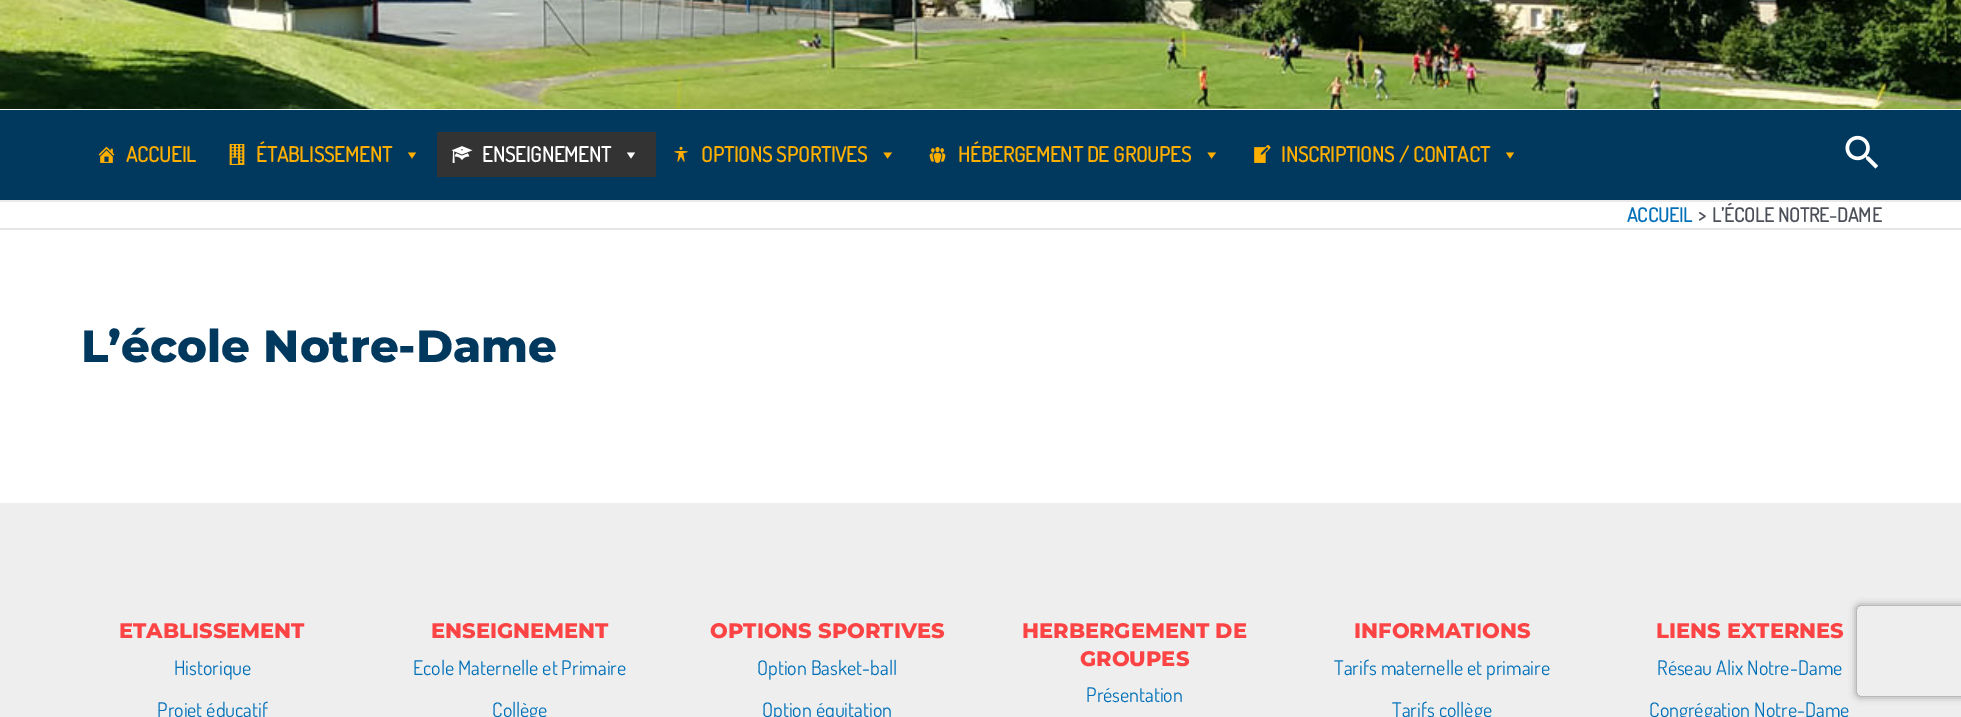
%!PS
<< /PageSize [1961 717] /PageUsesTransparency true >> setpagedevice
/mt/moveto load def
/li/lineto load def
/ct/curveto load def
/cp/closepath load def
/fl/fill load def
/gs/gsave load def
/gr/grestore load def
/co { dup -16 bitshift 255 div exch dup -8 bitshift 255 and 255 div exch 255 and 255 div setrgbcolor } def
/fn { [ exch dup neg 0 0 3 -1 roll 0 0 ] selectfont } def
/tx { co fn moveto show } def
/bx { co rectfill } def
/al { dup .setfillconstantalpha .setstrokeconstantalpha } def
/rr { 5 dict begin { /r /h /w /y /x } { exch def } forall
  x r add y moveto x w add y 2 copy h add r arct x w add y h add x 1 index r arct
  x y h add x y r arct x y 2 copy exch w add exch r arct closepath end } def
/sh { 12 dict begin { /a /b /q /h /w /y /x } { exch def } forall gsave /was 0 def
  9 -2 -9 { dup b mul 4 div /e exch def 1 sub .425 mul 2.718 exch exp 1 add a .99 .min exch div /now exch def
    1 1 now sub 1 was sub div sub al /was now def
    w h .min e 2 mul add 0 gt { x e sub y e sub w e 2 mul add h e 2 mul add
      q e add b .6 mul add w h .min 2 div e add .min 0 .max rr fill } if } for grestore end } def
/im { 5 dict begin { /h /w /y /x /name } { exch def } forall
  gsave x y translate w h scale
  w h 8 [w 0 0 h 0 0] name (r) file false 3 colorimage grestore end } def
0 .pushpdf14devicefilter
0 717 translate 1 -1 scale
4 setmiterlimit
0 0 1961 717 16#FFFFFF bx
(media/1.raw) 0 0 1961 109 im
0 110 1961 90 16#01395E bx
0 200 1961 2 16#EAEAEA bx
(media/2.raw) 98 146 17 17 im
(media/3.raw) 229 144 16 21 im
16#FFAF00 co
416 152.5 mt 412 158.5 li 408 152.5 li cp fl
437 132 219 45 16#333333 bx
(media/4.raw) 451 146 22 17 im
16#FFFFFF co
635 152.5 mt 631 158.5 li 627 152.5 li cp fl
(media/5.raw) 674 146 14 16 im
16#FFAF00 co
892 152.5 mt 887.5 158.5 li 883.5 152.5 li cp fl
(media/6.raw) 929 147 17 16 im
1216 152.5 mt 1211.5 158.5 li 1207.5 152.5 li cp fl
(media/7.raw) 1254 145 17 18 im
1514 152.5 mt 1510 158.5 li 1506 152.5 li cp fl
(media/8.raw) 1845 135 33 34 im
0 228 1961 2 16#E5E5E5 bx
0 503 1961 214 16#EEEEEE bx
gs
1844 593 mt 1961 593 li 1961 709 li 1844 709 li cp 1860 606 mt 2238 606 li 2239.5 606 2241 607.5 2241 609 ct 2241 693 li 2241 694.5 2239.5 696 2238 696 ct 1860 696 li 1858.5 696 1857 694.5 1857 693 ct 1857 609 li 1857 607.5 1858.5 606 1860 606 ct cp eoclip newpath
16#808080 co
1857 606 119 90 3 4 1 sh
gr
(ACCUEIL) 126 162 /Dosis-Bold 21 16#FFAF00 tx
(ÉTABLISSEMENT) 256 162 /Dosis-Bold 21 16#FFAF00 tx
(ENSEIGNEMENT) 482 162 /Dosis-Bold 21 16#FFFFFF tx
(OPTIONS SPORTIVES) 701 162 /Dosis-Bold 21 16#FFAF00 tx
(HÉBERGEMENT DE GROUPES) 958 162 /Dosis-Bold 21 16#FFAF00 tx
(INSCRIPTIONS / CONTACT) 1281 162 /Dosis-Bold 21 16#FFAF00 tx
(ACCUEIL) 1627 222 /Dosis-Bold 19.5 16#0170B9 tx
(>) 1698 222 /Dosis-Bold 19.5 16#4B4F58 tx
(L’ÉCOLE NOTRE-DAME) 1712 222 /Dosis-Bold 19.5 16#4B4F58 tx
(L’école Notre-Dame) 81 362 /Montserrat-ExtraBold 45 16#01395E tx
(ETABLISSEMENT) 119 638 /Montserrat-ExtraBold 21 16#FD4445 tx
(Historique) 174 675 /Dosis-Regular 20 16#0170B9 tx
(Projet éducatif) 157 717 /Dosis-Regular 20 16#0170B9 tx
(ENSEIGNEMENT) 431 638 /Montserrat-ExtraBold 21 16#FD4445 tx
(Ecole Maternelle et Primaire) 413 675 /Dosis-Regular 20 16#0170B9 tx
(Collège) 492 717 /Dosis-Regular 20 16#0170B9 tx
(OPTIONS SPORTIVES) 710 638 /Montserrat-ExtraBold 21 16#FD4445 tx
(Option Basket-ball) 757 675 /Dosis-Regular 20 16#0170B9 tx
(Option équitation) 762 717 /Dosis-Regular 20 16#0170B9 tx
(HERBERGEMENT DE) 1022 638 /Montserrat-ExtraBold 21 16#FD4445 tx
(GROUPES) 1080 666 /Montserrat-ExtraBold 21 16#FD4445 tx
(Présentation) 1086 702 /Dosis-Regular 20 16#0170B9 tx
(INFORMATIONS) 1354 638 /Montserrat-ExtraBold 21 16#FD4445 tx
(Tarifs maternelle et primaire) 1334 675 /Dosis-Regular 20 16#0170B9 tx
(Tarifs collège) 1392 717 /Dosis-Regular 20 16#0170B9 tx
(LIENS EXTERNES) 1656 638 /Montserrat-ExtraBold 21 16#FD4445 tx
(Réseau Alix Notre-Dame) 1657 675 /Dosis-Regular 20 16#0170B9 tx
(Congrégation Notre-Dame) 1649 717 /Dosis-Regular 20 16#0170B9 tx
.poppdf14devicefilter showpage
